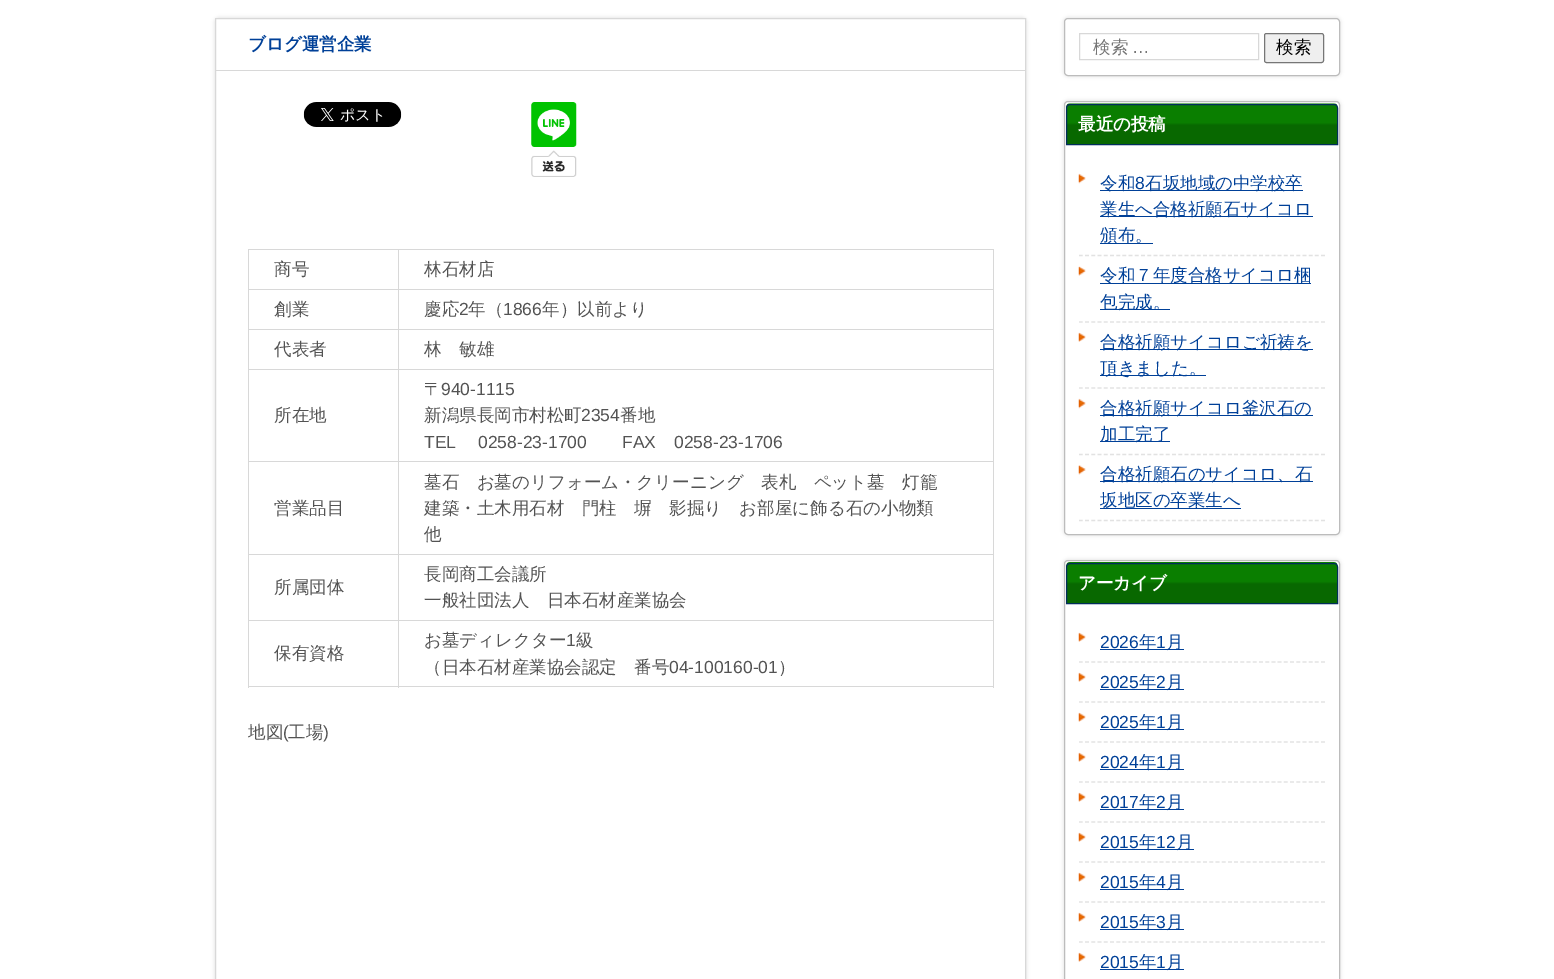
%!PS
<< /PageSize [1554 979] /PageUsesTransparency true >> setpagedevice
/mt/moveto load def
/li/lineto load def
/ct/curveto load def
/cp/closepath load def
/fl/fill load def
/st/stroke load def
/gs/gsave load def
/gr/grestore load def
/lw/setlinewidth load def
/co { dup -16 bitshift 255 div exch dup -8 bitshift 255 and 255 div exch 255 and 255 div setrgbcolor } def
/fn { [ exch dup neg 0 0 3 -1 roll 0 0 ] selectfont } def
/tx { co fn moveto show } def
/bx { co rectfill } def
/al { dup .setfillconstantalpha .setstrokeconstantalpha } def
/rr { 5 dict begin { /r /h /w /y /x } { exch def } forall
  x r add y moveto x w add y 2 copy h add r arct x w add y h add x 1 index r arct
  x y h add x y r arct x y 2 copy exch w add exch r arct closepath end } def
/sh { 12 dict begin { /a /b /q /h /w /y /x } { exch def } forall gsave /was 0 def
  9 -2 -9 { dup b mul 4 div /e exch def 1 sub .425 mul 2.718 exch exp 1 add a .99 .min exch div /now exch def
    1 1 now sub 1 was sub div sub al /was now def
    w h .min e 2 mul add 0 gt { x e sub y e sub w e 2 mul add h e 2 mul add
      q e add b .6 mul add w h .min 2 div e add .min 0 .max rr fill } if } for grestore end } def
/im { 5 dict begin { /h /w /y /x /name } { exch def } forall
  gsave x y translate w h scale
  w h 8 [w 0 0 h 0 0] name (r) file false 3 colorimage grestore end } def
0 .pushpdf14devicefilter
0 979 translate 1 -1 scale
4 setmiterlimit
0 0 1554 979 16#FFFFFF bx
gs
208 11 mt 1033 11 li 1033 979 li 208 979 li cp 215 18 mt 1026 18 li 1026 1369 li 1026 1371 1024 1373 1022 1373 ct 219 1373 li 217 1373 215 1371 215 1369 ct cp eoclip newpath
16#CDCDCD co
215 18 811 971 4 2 .75 sh
gr
16#D8D8D8 co
215.5 18.5 810 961 rectstroke
216 70 809 1 16#D8D8D8 bx
(media/1.raw) 303 102 99 25 im
(media/2.raw) 531 102 46 75 im
248 249 746 1 16#D8D8D8 bx
993 249 1 439 16#D8D8D8 bx
248 686 746 1 16#D8D8D8 bx
248 249 1 439 16#D8D8D8 bx
398 289 596 1 16#D8D8D8 bx
398 329 596 1 16#D8D8D8 bx
398 369 596 1 16#D8D8D8 bx
398 461 596 1 16#D8D8D8 bx
398 554 596 1 16#D8D8D8 bx
398 620 596 1 16#D8D8D8 bx
398 620 1 68 16#D8D8D8 bx
248 620 151 1 16#D8D8D8 bx
398 554 1 67 16#D8D8D8 bx
248 554 151 1 16#D8D8D8 bx
398 461 1 94 16#D8D8D8 bx
248 461 151 1 16#D8D8D8 bx
398 369 1 94 16#D8D8D8 bx
248 369 151 1 16#D8D8D8 bx
398 329 1 41 16#D8D8D8 bx
248 329 151 1 16#D8D8D8 bx
398 289 1 41 16#D8D8D8 bx
248 289 151 1 16#D8D8D8 bx
398 249 1 41 16#D8D8D8 bx
16#CDCDCD co
1064 18 276 58 4 2 .75 sh
16#FFFFFF co
1064.5 18.5 275 57 3.5 rr gs fl gr
16#BCBCBC co
st
16#D8D8D8 co
1079.5 33.5 179 26 rectstroke
16#EFEFEF co
1264.5 33.5 59 29 2 rr gs fl gr
16#767676 co
st
16#CDCDCD co
1064 101 276 434 4 2 .75 sh
16#FFFFFF co
1064.5 101.5 275 433 3.5 rr gs fl gr
16#BCBCBC co
st
(media/3.raw) 1066 103 272 41 im
16#022E5B co
1070 104.5 mt 1334 104.5 li 1336 104.5 1337.5 106 1337.5 108 ct 1337.5 144.5 li 1066.5 144.5 li 1066.5 108 li 1066.5 106 1068 104.5 1070 104.5 ct cp st
(media/4.raw) 1078 173 8 11 im
1100 190 203 1 16#004098 bx
1100 216 213 1 16#004098 bx
1100 243 53 1 16#004098 bx
16#E2E2E2 co
1.2 lw
[3.75 2.46] 0 setdash
1079 255.5 mt 1325 255.5 li st
(media/5.raw) 1078 266 8 10 im
1100 283 211 1 16#004098 bx
1100 309 70 1 16#004098 bx
16#E2E2E2 co
1079 322 mt 1325 322 li st
(media/6.raw) 1078 332 8 10 im
1100 349 213 1 16#004098 bx
1100 375 106 1 16#004098 bx
16#E2E2E2 co
1079 388 mt 1325 388 li st
(media/4.raw) 1078 398 8 11 im
1100 415 213 1 16#004098 bx
1100 441 70 1 16#004098 bx
16#E2E2E2 co
1079 454.5 mt 1325 454.5 li st
1079 520.5 mt 1325 520.5 li st
(media/7.raw) 1078 465 8 10 im
1100 481 213 1 16#004098 bx
1100 508 141 1 16#004098 bx
16#CDCDCD co
1064 560 276 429 4 2 .75 sh
16#FFFFFF co
1064.5 560.5 275 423 3.5 rr gs fl gr
16#BCBCBC co
1 lw
[] 0 setdash
st
(media/8.raw) 1066 562 272 41 im
16#022E5B co
1070 563.5 mt 1334 563.5 li 1336 563.5 1337.5 565 1337.5 567 ct 1337.5 603.5 li 1066.5 603.5 li 1066.5 567 li 1066.5 565 1068 563.5 1070 563.5 ct cp st
(media/9.raw) 1078 632 8 10 im
1100 649 84 1 16#004098 bx
16#E2E2E2 co
1.2 lw
[3.75 2.46] 0 setdash
1079 662 mt 1325 662 li st
(media/9.raw) 1078 672 8 10 im
1100 689 84 1 16#004098 bx
16#E2E2E2 co
1079 702 mt 1325 702 li st
(media/9.raw) 1078 712 8 10 im
1100 729 84 1 16#004098 bx
16#E2E2E2 co
1079 742 mt 1325 742 li st
(media/9.raw) 1078 752 8 10 im
1100 769 84 1 16#004098 bx
16#E2E2E2 co
1079 782 mt 1325 782 li st
(media/9.raw) 1078 792 8 10 im
1100 809 84 1 16#004098 bx
16#E2E2E2 co
1079 822 mt 1325 822 li st
(media/9.raw) 1078 832 8 10 im
1100 849 94 1 16#004098 bx
16#E2E2E2 co
1079 862 mt 1325 862 li st
(media/9.raw) 1078 872 8 10 im
1100 889 84 1 16#004098 bx
16#E2E2E2 co
1079 902 mt 1325 902 li st
(media/9.raw) 1078 912 8 10 im
1100 929 84 1 16#004098 bx
16#E2E2E2 co
1079 942 mt 1325 942 li st
(media/9.raw) 1078 952 8 10 im
1100 969 84 1 16#004098 bx
(ブログ運営企業) 248 50 /WenQuanYiZenHei-Bold 17.5 16#004098 tx
(商号) 274 275 /WenQuanYiZenHei-Medium 17.5 16#535353 tx
(林石材店) 424 275 /WenQuanYiZenHei-Medium 17.5 16#535353 tx
(創業) 274 315 /WenQuanYiZenHei-Medium 17.5 16#535353 tx
(慶応) 424 315 /WenQuanYiZenHei-Medium 17.5 16#535353 tx
(2) 459 315 /LiberationSans-Regular 17.5 16#535353 tx
(年（) 468 315 /WenQuanYiZenHei-Medium 17.5 16#535353 tx
(1866) 503 315 /LiberationSans-Regular 17.5 16#535353 tx
(年）以前より) 542 315 /WenQuanYiZenHei-Medium 17.5 16#535353 tx
(代表者) 274 355 /WenQuanYiZenHei-Medium 17.5 16#535353 tx
(林　敏雄) 424 355 /WenQuanYiZenHei-Medium 17.5 16#535353 tx
(所在地) 274 421 /WenQuanYiZenHei-Medium 17.5 16#535353 tx
(〒) 424 395 /WenQuanYiZenHei-Medium 17.5 16#535353 tx
(940-1115) 441 395 /LiberationSans-Regular 17.5 16#535353 tx
(新潟県長岡市村松町) 424 421 /WenQuanYiZenHei-Medium 17.5 16#535353 tx
(2354) 581 421 /LiberationSans-Regular 17.5 16#535353 tx
(番地) 620 421 /WenQuanYiZenHei-Medium 17.5 16#535353 tx
(TEL) 424 448 /LiberationSans-Regular 17.5 16#535353 tx
(0258-23-1700) 478 448 /LiberationSans-Regular 17.5 16#535353 tx
(FAX) 622 448 /LiberationSans-Regular 17.5 16#535353 tx
(0258-23-1706) 674 448 /LiberationSans-Regular 17.5 16#535353 tx
(営業品目) 274 514 /WenQuanYiZenHei-Medium 17.5 16#535353 tx
(墓石　お墓のリフォーム・クリーニング　表札　ペット墓　灯籠) 424 488 /WenQuanYiZenHei-Medium 17.5 16#535353 tx
(建築・土木用石材　門柱　塀　影掘り　お部屋に飾る石の小物類) 424 514 /WenQuanYiZenHei-Medium 17.5 16#535353 tx
(他) 424 540 /WenQuanYiZenHei-Medium 17.5 16#535353 tx
(所属団体) 274 593 /WenQuanYiZenHei-Medium 17.5 16#535353 tx
(長岡商工会議所) 424 580 /WenQuanYiZenHei-Medium 17.5 16#535353 tx
(一般社団法人　日本石材産業協会) 424 606 /WenQuanYiZenHei-Medium 17.5 16#535353 tx
(保有資格) 274 659 /WenQuanYiZenHei-Medium 17.5 16#535353 tx
(お墓ディレクター) 424 646 /WenQuanYiZenHei-Medium 17.5 16#535353 tx
(1) 566 646 /LiberationSans-Regular 17.5 16#535353 tx
(級) 576 646 /WenQuanYiZenHei-Medium 17.5 16#535353 tx
(（日本石材産業協会認定　番号) 424 673 /WenQuanYiZenHei-Medium 17.5 16#535353 tx
(04-100160-01) 669 673 /LiberationSans-Regular 17.5 16#535353 tx
(）) 778 673 /WenQuanYiZenHei-Medium 17.5 16#535353 tx
(地図) 248 738 /WenQuanYiZenHei-Medium 17.5 16#535353 tx
(\() 283 738 /LiberationSans-Regular 17.5 16#535353 tx
(工場) 288 738 /WenQuanYiZenHei-Medium 17.5 16#535353 tx
(\)) 323 738 /LiberationSans-Regular 17.5 16#535353 tx
(検索) 1093 53 /WenQuanYiZenHei-Medium 17.5 16#757575 tx
(…) 1132 53 /LiberationSans-Regular 17.5 16#757575 tx
(検索) 1276 53 /WenQuanYiZenHei-Medium 17.5 16#000000 tx
(最近の投稿) 1078 130 /WenQuanYiZenHei-Bold 17.5 16#FFFFFF tx
(令和) 1100 189 /WenQuanYiZenHei-Medium 17.5 16#004098 tx
(8) 1135 189 /LiberationSans-Regular 17.5 16#004098 tx
(石坂地域の中学校卒) 1145 189 /WenQuanYiZenHei-Medium 17.5 16#004098 tx
(業生へ合格祈願石サイコロ) 1100 215 /WenQuanYiZenHei-Medium 17.5 16#004098 tx
(頒布。) 1100 241 /WenQuanYiZenHei-Medium 17.5 16#004098 tx
(令和７年度合格サイコロ梱) 1100 281 /WenQuanYiZenHei-Medium 17.5 16#004098 tx
(包完成。) 1100 308 /WenQuanYiZenHei-Medium 17.5 16#004098 tx
(合格祈願サイコロご祈祷を) 1100 348 /WenQuanYiZenHei-Medium 17.5 16#004098 tx
(頂きました。) 1100 374 /WenQuanYiZenHei-Medium 17.5 16#004098 tx
(合格祈願サイコロ釜沢石の) 1100 414 /WenQuanYiZenHei-Medium 17.5 16#004098 tx
(加工完了) 1100 440 /WenQuanYiZenHei-Medium 17.5 16#004098 tx
(合格祈願石のサイコロ、石) 1100 480 /WenQuanYiZenHei-Medium 17.5 16#004098 tx
(坂地区の卒業生へ) 1100 506 /WenQuanYiZenHei-Medium 17.5 16#004098 tx
(アーカイブ) 1078 589 /WenQuanYiZenHei-Bold 17.5 16#FFFFFF tx
(2026) 1100 648 /LiberationSans-Regular 17.5 16#004098 tx
(年) 1139 648 /WenQuanYiZenHei-Medium 17.5 16#004098 tx
(1) 1156 648 /LiberationSans-Regular 17.5 16#004098 tx
(月) 1166 648 /WenQuanYiZenHei-Medium 17.5 16#004098 tx
(2025) 1100 688 /LiberationSans-Regular 17.5 16#004098 tx
(年) 1139 688 /WenQuanYiZenHei-Medium 17.5 16#004098 tx
(2) 1156 688 /LiberationSans-Regular 17.5 16#004098 tx
(月) 1166 688 /WenQuanYiZenHei-Medium 17.5 16#004098 tx
(2025) 1100 728 /LiberationSans-Regular 17.5 16#004098 tx
(年) 1139 728 /WenQuanYiZenHei-Medium 17.5 16#004098 tx
(1) 1156 728 /LiberationSans-Regular 17.5 16#004098 tx
(月) 1166 728 /WenQuanYiZenHei-Medium 17.5 16#004098 tx
(2024) 1100 768 /LiberationSans-Regular 17.5 16#004098 tx
(年) 1139 768 /WenQuanYiZenHei-Medium 17.5 16#004098 tx
(1) 1156 768 /LiberationSans-Regular 17.5 16#004098 tx
(月) 1166 768 /WenQuanYiZenHei-Medium 17.5 16#004098 tx
(2017) 1100 808 /LiberationSans-Regular 17.5 16#004098 tx
(年) 1139 808 /WenQuanYiZenHei-Medium 17.5 16#004098 tx
(2) 1156 808 /LiberationSans-Regular 17.5 16#004098 tx
(月) 1166 808 /WenQuanYiZenHei-Medium 17.5 16#004098 tx
(2015) 1100 848 /LiberationSans-Regular 17.5 16#004098 tx
(年) 1139 848 /WenQuanYiZenHei-Medium 17.5 16#004098 tx
(12) 1156 848 /LiberationSans-Regular 17.5 16#004098 tx
(月) 1176 848 /WenQuanYiZenHei-Medium 17.5 16#004098 tx
(2015) 1100 888 /LiberationSans-Regular 17.5 16#004098 tx
(年) 1139 888 /WenQuanYiZenHei-Medium 17.5 16#004098 tx
(4) 1156 888 /LiberationSans-Regular 17.5 16#004098 tx
(月) 1166 888 /WenQuanYiZenHei-Medium 17.5 16#004098 tx
(2015) 1100 928 /LiberationSans-Regular 17.5 16#004098 tx
(年) 1139 928 /WenQuanYiZenHei-Medium 17.5 16#004098 tx
(3) 1156 928 /LiberationSans-Regular 17.5 16#004098 tx
(月) 1166 928 /WenQuanYiZenHei-Medium 17.5 16#004098 tx
(2015) 1100 968 /LiberationSans-Regular 17.5 16#004098 tx
(年) 1139 968 /WenQuanYiZenHei-Medium 17.5 16#004098 tx
(1) 1156 968 /LiberationSans-Regular 17.5 16#004098 tx
(月) 1166 968 /WenQuanYiZenHei-Medium 17.5 16#004098 tx
.poppdf14devicefilter showpage
